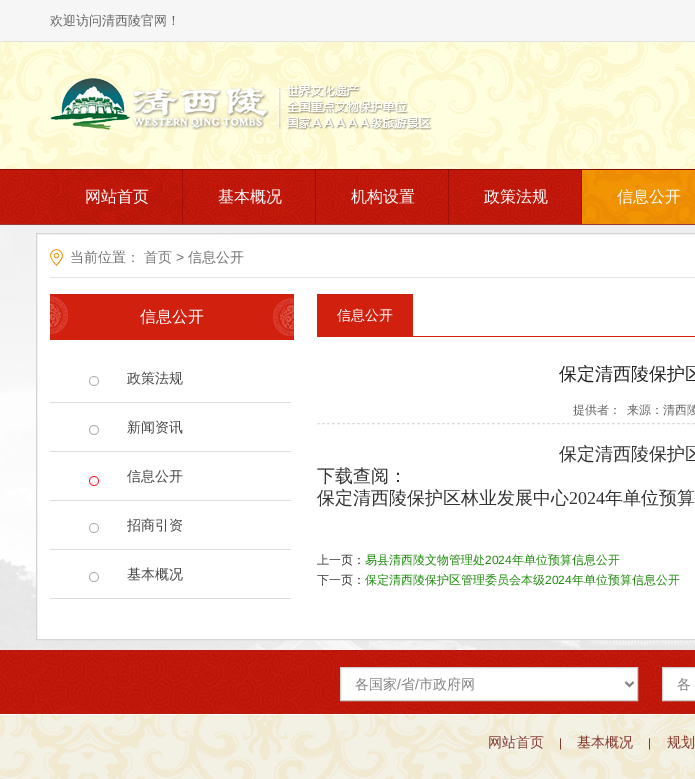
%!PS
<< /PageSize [695 779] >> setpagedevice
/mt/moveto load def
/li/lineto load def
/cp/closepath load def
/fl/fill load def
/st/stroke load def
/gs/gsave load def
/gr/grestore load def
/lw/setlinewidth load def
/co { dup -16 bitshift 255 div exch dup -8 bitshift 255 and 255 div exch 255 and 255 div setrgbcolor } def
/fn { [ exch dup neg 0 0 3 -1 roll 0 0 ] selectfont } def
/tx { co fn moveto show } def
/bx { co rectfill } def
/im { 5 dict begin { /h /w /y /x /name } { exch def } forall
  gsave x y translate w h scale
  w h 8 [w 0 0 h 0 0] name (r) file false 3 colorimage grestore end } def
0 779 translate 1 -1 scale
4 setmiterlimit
0 0 695 779 16#FFFFFF bx
(media/1.raw) 0 0 695 225 im
(media/2.raw) 50 78 382 52 im
(media/3.raw) 182 170 1 54 im
(media/3.raw) 315 170 1 54 im
(media/3.raw) 448 170 1 54 im
(media/3.raw) 581 170 1 54 im
(media/4.raw) 582 170 113 54 im
(media/5.raw) 0 225 695 425 im
36.5 233.5 mt 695.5 233.5 li 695.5 639.5 li 36.5 639.5 li cp gs fl gr
16#D4D4D4 co
st
(media/6.raw) 50 249 13 17 im
50 277 645 1 16#E4E4E4 bx
(media/7.raw) 50 294 244 46 im
(media/8.raw) 50 376 241 27 im
(media/8.raw) 50 425 241 27 im
(media/9.raw) 50 476 241 25 im
(media/8.raw) 50 523 241 27 im
(media/8.raw) 50 572 241 27 im
317 336 378 1 16#D2200F bx
317 294 96 42 16#D2200F bx
16#DDDDDD co
[3 2] 0 setdash
317 423.5 mt 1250 423.5 li st
(media/10.raw) 0 650 695 129 im
16#FFFFFF co
340.5 667.5 mt 637.5 667.5 li 637.5 700.5 li 340.5 700.5 li cp gs fl gr
16#D0D0D0 co
[] 0 setdash
st
16#848484 co
2 lw
625.5 682 mt 629.5 686 li 633.5 682 li st
16#FFFFFF co
662.5 667.5 mt 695.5 667.5 li 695.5 700.5 li 662.5 700.5 li cp gs fl gr
16#D0D0D0 co
1 lw
st
(欢迎访问清西陵官网！) 50 25 /WenQuanYiZenHei-Medium 13 16#666666 tx
(网站首页) 85 202 /WenQuanYiZenHei-Medium 16 16#FFFFFF tx
(基本概况) 218 202 /WenQuanYiZenHei-Medium 16 16#FFFFFF tx
(机构设置) 351 202 /WenQuanYiZenHei-Medium 16 16#FFFFFF tx
(政策法规) 484 202 /WenQuanYiZenHei-Medium 16 16#FFFFFF tx
(信息公开) 617 202 /WenQuanYiZenHei-Medium 16 16#FFFFFF tx
(当前位置：) 70 262 /WenQuanYiZenHei-Medium 14 16#737373 tx
(首页) 144 262 /WenQuanYiZenHei-Medium 14 16#737373 tx
(>) 176 262 /LiberationSans-Regular 14 16#737373 tx
(信息公开) 188 262 /WenQuanYiZenHei-Medium 14 16#737373 tx
(信息公开) 140 322 /WenQuanYiZenHei-Medium 16 16#FFFFFF tx
(政策法规) 127 383 /WenQuanYiZenHei-Medium 14 16#494949 tx
(新闻资讯) 127 432 /WenQuanYiZenHei-Medium 14 16#494949 tx
(信息公开) 127 481 /WenQuanYiZenHei-Medium 14 16#494949 tx
(招商引资) 127 530 /WenQuanYiZenHei-Medium 14 16#494949 tx
(基本概况) 127 579 /WenQuanYiZenHei-Medium 14 16#494949 tx
(信息公开) 337 320 /WenQuanYiZenHei-Medium 14 16#FFFFFF tx
(保定清西陵保护区) 559 380 /WenQuanYiZenHei-Medium 18 16#222222 tx
(提供者：) 573 414 /WenQuanYiZenHei-Medium 12 16#666666 tx
(来源：清西陵) 627 414 /WenQuanYiZenHei-Medium 12 16#666666 tx
(保定清西陵保护区) 559 460 /WenQuanYiZenHei-Medium 18 16#333333 tx
(下载查阅：) 317 482 /WenQuanYiZenHei-Medium 18 16#333333 tx
(保定清西陵保护区林业发展中心) 317 504 /WenQuanYiZenHei-Medium 18 16#333333 tx
(2024) 569 504 /LiberationSerif-Regular 18 16#333333 tx
(年单位预算) 605 504 /WenQuanYiZenHei-Medium 18 16#333333 tx
(上一页：) 317 564 /WenQuanYiZenHei-Medium 12 16#333333 tx
(易县清西陵文物管理处) 365 564 /WenQuanYiZenHei-Medium 12 16#1F8C0D tx
(2024) 485 564 /LiberationSans-Regular 12 16#1F8C0D tx
(年单位预算信息公开) 512 564 /WenQuanYiZenHei-Medium 12 16#1F8C0D tx
(下一页：) 317 584 /WenQuanYiZenHei-Medium 12 16#333333 tx
(保定清西陵保护区管理委员会本级) 365 584 /WenQuanYiZenHei-Medium 12 16#1F8C0D tx
(2024) 545 584 /LiberationSans-Regular 12 16#1F8C0D tx
(年单位预算信息公开) 572 584 /WenQuanYiZenHei-Medium 12 16#1F8C0D tx
(各国家) 355 689 /WenQuanYiZenHei-Medium 14 16#848484 tx
(/) 397 689 /LiberationSans-Regular 14 16#848484 tx
(省) 401 689 /WenQuanYiZenHei-Medium 14 16#848484 tx
(/) 415 689 /LiberationSans-Regular 14 16#848484 tx
(市政府网) 419 689 /WenQuanYiZenHei-Medium 14 16#848484 tx
(各) 677 689 /WenQuanYiZenHei-Medium 14 16#848484 tx
(网站首页) 488 747 /WenQuanYiZenHei-Medium 14 16#863A34 tx
(|) 559 747 /LiberationSans-Regular 12 16#863A34 tx
(基本概况) 577 747 /WenQuanYiZenHei-Medium 14 16#863A34 tx
(|) 648 747 /LiberationSans-Regular 12 16#863A34 tx
(规划) 667 747 /WenQuanYiZenHei-Medium 14 16#863A34 tx
showpage
